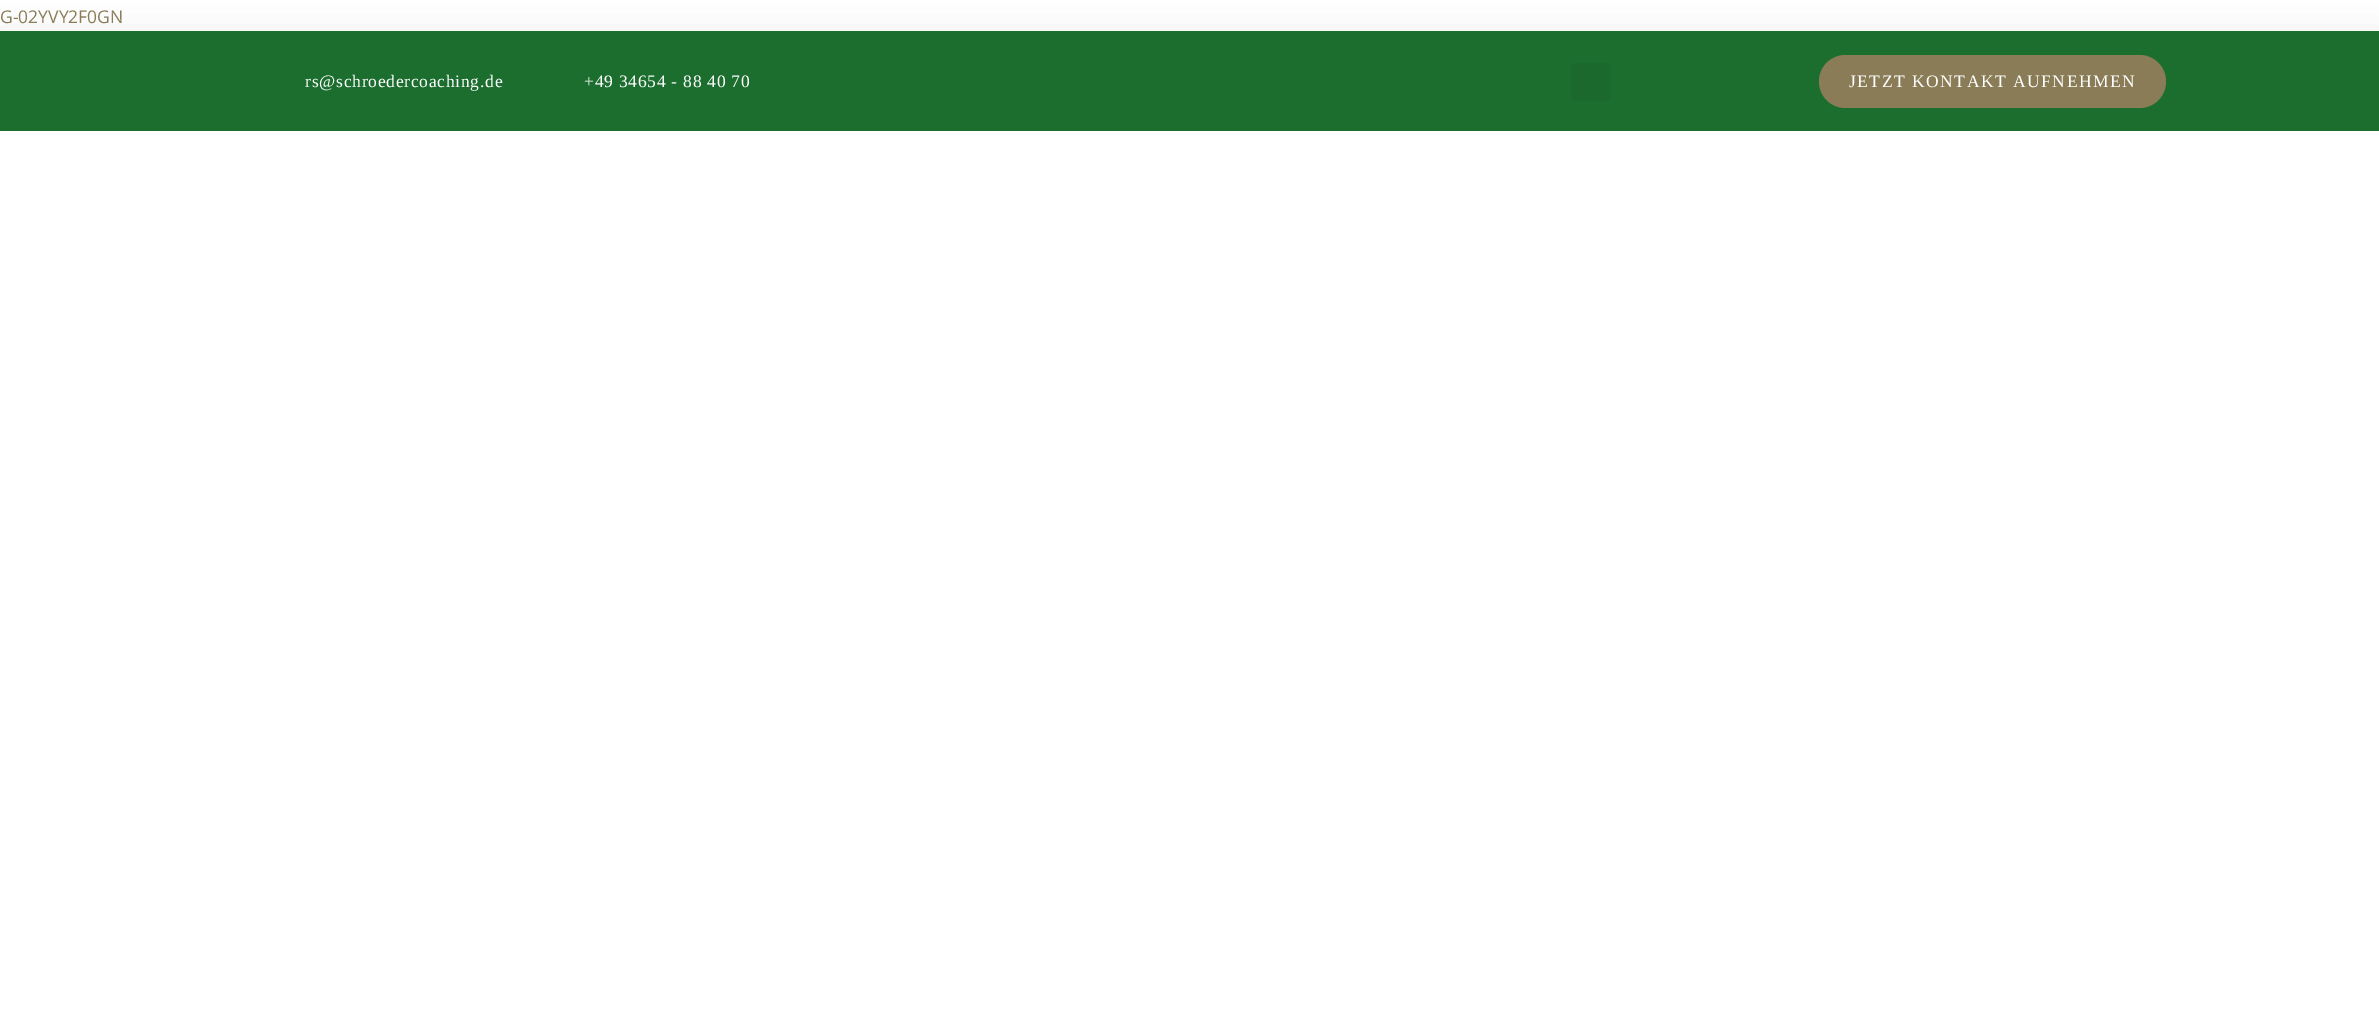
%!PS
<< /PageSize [2379 1015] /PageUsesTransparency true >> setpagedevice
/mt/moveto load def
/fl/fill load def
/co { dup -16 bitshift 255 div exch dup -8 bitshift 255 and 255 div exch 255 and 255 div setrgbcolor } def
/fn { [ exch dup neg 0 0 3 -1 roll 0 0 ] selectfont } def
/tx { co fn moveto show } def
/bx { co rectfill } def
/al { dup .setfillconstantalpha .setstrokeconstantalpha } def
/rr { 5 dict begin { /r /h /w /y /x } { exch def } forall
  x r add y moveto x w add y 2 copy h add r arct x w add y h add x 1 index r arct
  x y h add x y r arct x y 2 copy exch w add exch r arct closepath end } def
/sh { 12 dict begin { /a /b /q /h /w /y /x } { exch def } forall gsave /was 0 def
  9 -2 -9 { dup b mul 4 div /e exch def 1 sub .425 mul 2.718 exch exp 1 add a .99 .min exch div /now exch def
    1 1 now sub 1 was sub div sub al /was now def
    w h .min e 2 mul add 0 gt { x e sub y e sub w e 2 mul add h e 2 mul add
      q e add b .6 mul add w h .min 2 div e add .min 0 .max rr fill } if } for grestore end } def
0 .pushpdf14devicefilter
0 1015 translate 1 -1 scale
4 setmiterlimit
0 0 2379 1015 16#FFFFFF bx
16#000000 co
0 38 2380 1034 0 19 .1 sh
0 31 2379 100 16#1C6E2F bx
16#1B692D co
1571 63 39 38 4 rr fl
16#8A7C57 co
1819 55 347 53 26.5 rr fl
0 131 2379 884 16#FFFFFF bx
(G-02YVY2F0GN) 0 23 /OpenSans-Regular 17.5 16#8A7C57 tx
/LiberationSerif-Regular 17.5 fn
16#FFFFFF co
305 87 mt .75 0 (rs@schroedercoaching.de) ashow
584 87 mt .75 0 (+49 34654 - 88 40 70) ashow
1849 87 mt 1.5 0 (JETZT KONTAKT AUFNEHMEN) ashow
.poppdf14devicefilter showpage
